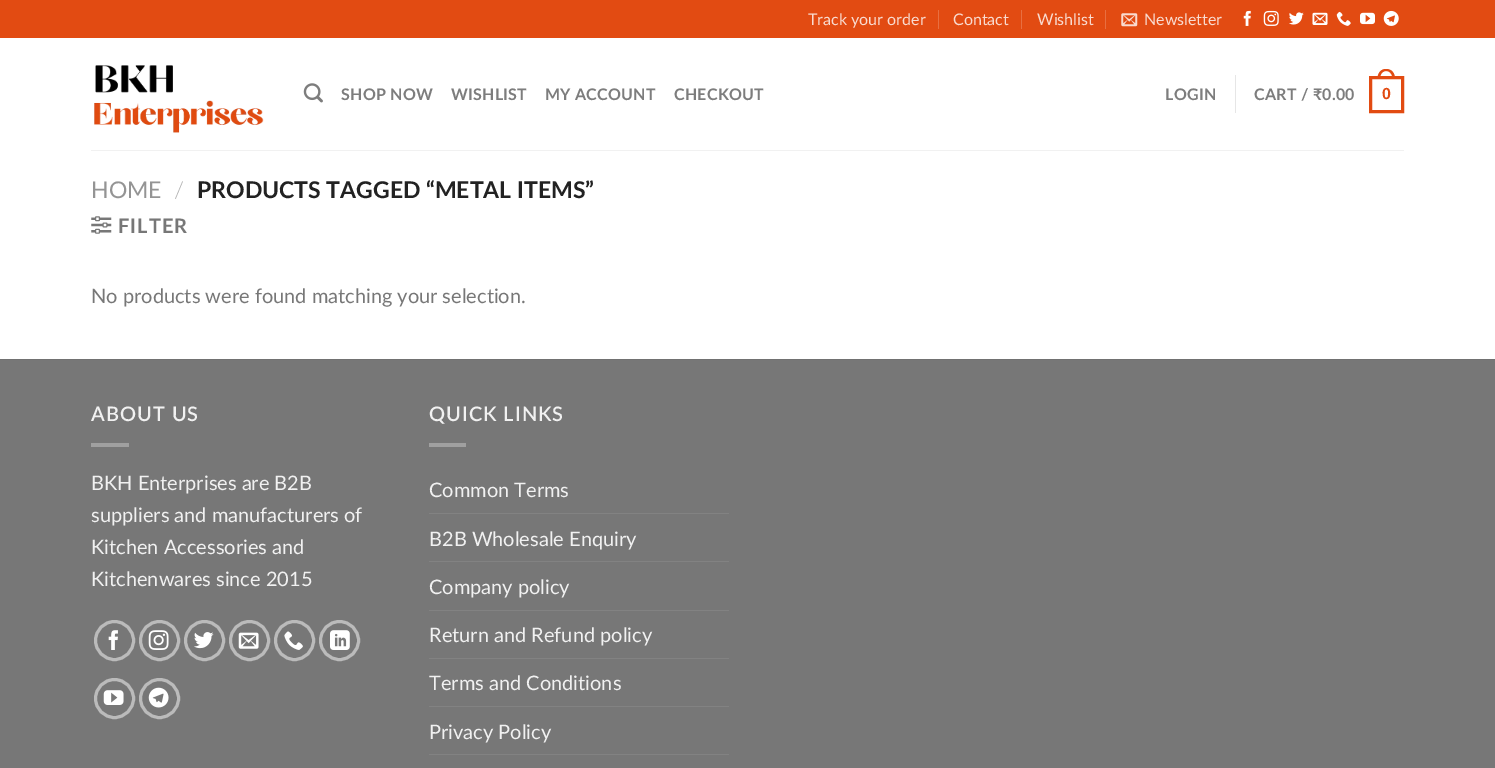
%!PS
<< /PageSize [1495 768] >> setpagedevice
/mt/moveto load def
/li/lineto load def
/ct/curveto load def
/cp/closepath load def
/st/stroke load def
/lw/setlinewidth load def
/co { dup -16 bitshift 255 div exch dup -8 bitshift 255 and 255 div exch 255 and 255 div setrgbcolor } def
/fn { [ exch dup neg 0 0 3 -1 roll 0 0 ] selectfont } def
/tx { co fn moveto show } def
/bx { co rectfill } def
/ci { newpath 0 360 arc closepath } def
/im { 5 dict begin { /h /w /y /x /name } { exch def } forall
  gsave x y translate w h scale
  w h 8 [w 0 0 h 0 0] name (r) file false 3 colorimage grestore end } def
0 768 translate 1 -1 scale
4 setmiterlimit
0 0 1495 768 16#FFFFFF bx
0 0 1495 38 16#E24B12 bx
938 10 1 19 16#E86F41 bx
1021 10 1 19 16#E86F41 bx
1105 10 1 19 16#E86F41 bx
(media/1.raw) 1121 13 17 14 im
(media/2.raw) 1243 10 8 16 im
(media/3.raw) 1263 10 16 16 im
(media/4.raw) 1289 12 15 13 im
(media/5.raw) 1312 12 16 13 im
(media/6.raw) 1336 11 15 15 im
(media/7.raw) 1360 12 15 13 im
(media/8.raw) 1383 10 16 16 im
(media/9.raw) 94 65 170 68 im
(media/10.raw) 303 83 20 20 im
1235 75 1 38 16#E6E6E6 bx
16#E24B12 co
3 lw
1370.5 77.5 32 34 rectstroke
1386 69 mt 1392 69 1395 73.5 1395 79 ct 1377.5 79 li 1377.5 73.5 1380.5 69 1386 69 ct cp 1386 71 mt 1390.5 71 1392.5 75 1392.5 79 ct 1380 79 li 1380 75 1382 71 1386 71 ct cp eofill
91 150 1313 1 16#F1F1F1 bx
(media/11.raw) 91 216 21 18 im
0 360 1495 408 16#777777 bx
0 359 1495 1 16#717171 bx
91 443 38 4 16#A0A0A0 bx
16#BBBBBB co
114.5 640.5 19 ci st
(media/12.raw) 108 630 10 20 im
159.5 640.5 19 ci st
(media/13.raw) 148 630 21 20 im
204.5 640.5 19 ci st
(media/14.raw) 194 632 20 17 im
249.5 640.5 19 ci st
(media/15.raw) 238 632 21 17 im
294.5 640.5 19 ci st
(media/16.raw) 284 631 19 19 im
339.5 640.5 19 ci st
(media/17.raw) 330 630 20 20 im
114.5 698.5 19 ci st
(media/18.raw) 103 690 21 15 im
159.5 698.5 19 ci st
(media/19.raw) 148 687 21 21 im
429 443 37 4 16#A0A0A0 bx
429 513 300 1 16#828282 bx
429 561 300 1 16#828282 bx
429 610 300 1 16#828282 bx
429 658 300 1 16#828282 bx
429 706 300 1 16#828282 bx
429 754 300 1 16#828282 bx
(Track your order) 808 25 /Lato-Regular 16 16#F9DBD0 tx
(Contact) 953 25 /Lato-Regular 16 16#F9DBD0 tx
(Wishlist) 1037 25 /Lato-Regular 16 16#F9DBD0 tx
(Newsletter) 1144 25 /Lato-Regular 16 16#F9DBD0 tx
/Lato-Bold 16 fn
16#7D7D7D co
341 100 mt .25 0 (SHOP NOW) ashow
451 100 mt .25 0 (WISHLIST) ashow
545 100 mt .25 0 (MY ACCOUNT) ashow
674 100 mt .25 0 (CHECKOUT) ashow
1165 100 mt .25 0 (LOGIN) ashow
1254 100 mt .25 0 (CART / ₹0.00) ashow
/LiberationSans-Bold 16 fn
16#E24B12 co
1382 99 mt .25 0 (0) ashow
(HOME) 91 198 /Lato-Regular 23 16#949494 tx
(/) 174 198 /Lato-Light 23 16#B2B2B2 tx
(PRODUCTS TAGGED “METAL ITEMS”) 197 198 /Lato-Bold 23 16#222222 tx
/Lato-Bold 20 fn
16#777777 co
118 233 mt 1 0 (FILTER) ashow
(No products were found matching your selection.) 91 303 /Lato-Regular 20 16#777777 tx
/Lato-SemiBold 20 fn
16#F1F1F1 co
91 421 mt 1 0 (ABOUT US) ashow
(BKH Enterprises are B2B) 91 490 /Lato-Regular 20 16#F1F1F1 tx
(suppliers and manufacturers of) 91 522 /Lato-Regular 20 16#F1F1F1 tx
(Kitchen Accessories and) 91 554 /Lato-Regular 20 16#F1F1F1 tx
(Kitchenwares since 2015) 91 586 /Lato-Regular 20 16#F1F1F1 tx
/Lato-SemiBold 20 fn
429 421 mt 1 0 (QUICK LINKS) ashow
(Common Terms) 429 497 /Lato-Regular 20 16#F1F1F1 tx
(B2B Wholesale Enquiry) 429 546 /Lato-Regular 20 16#F1F1F1 tx
(Company policy) 429 594 /Lato-Regular 20 16#F1F1F1 tx
(Return and Refund policy) 429 642 /Lato-Regular 20 16#F1F1F1 tx
(Terms and Conditions) 429 690 /Lato-Regular 20 16#F1F1F1 tx
(Privacy Policy) 429 739 /Lato-Regular 20 16#F1F1F1 tx
showpage
